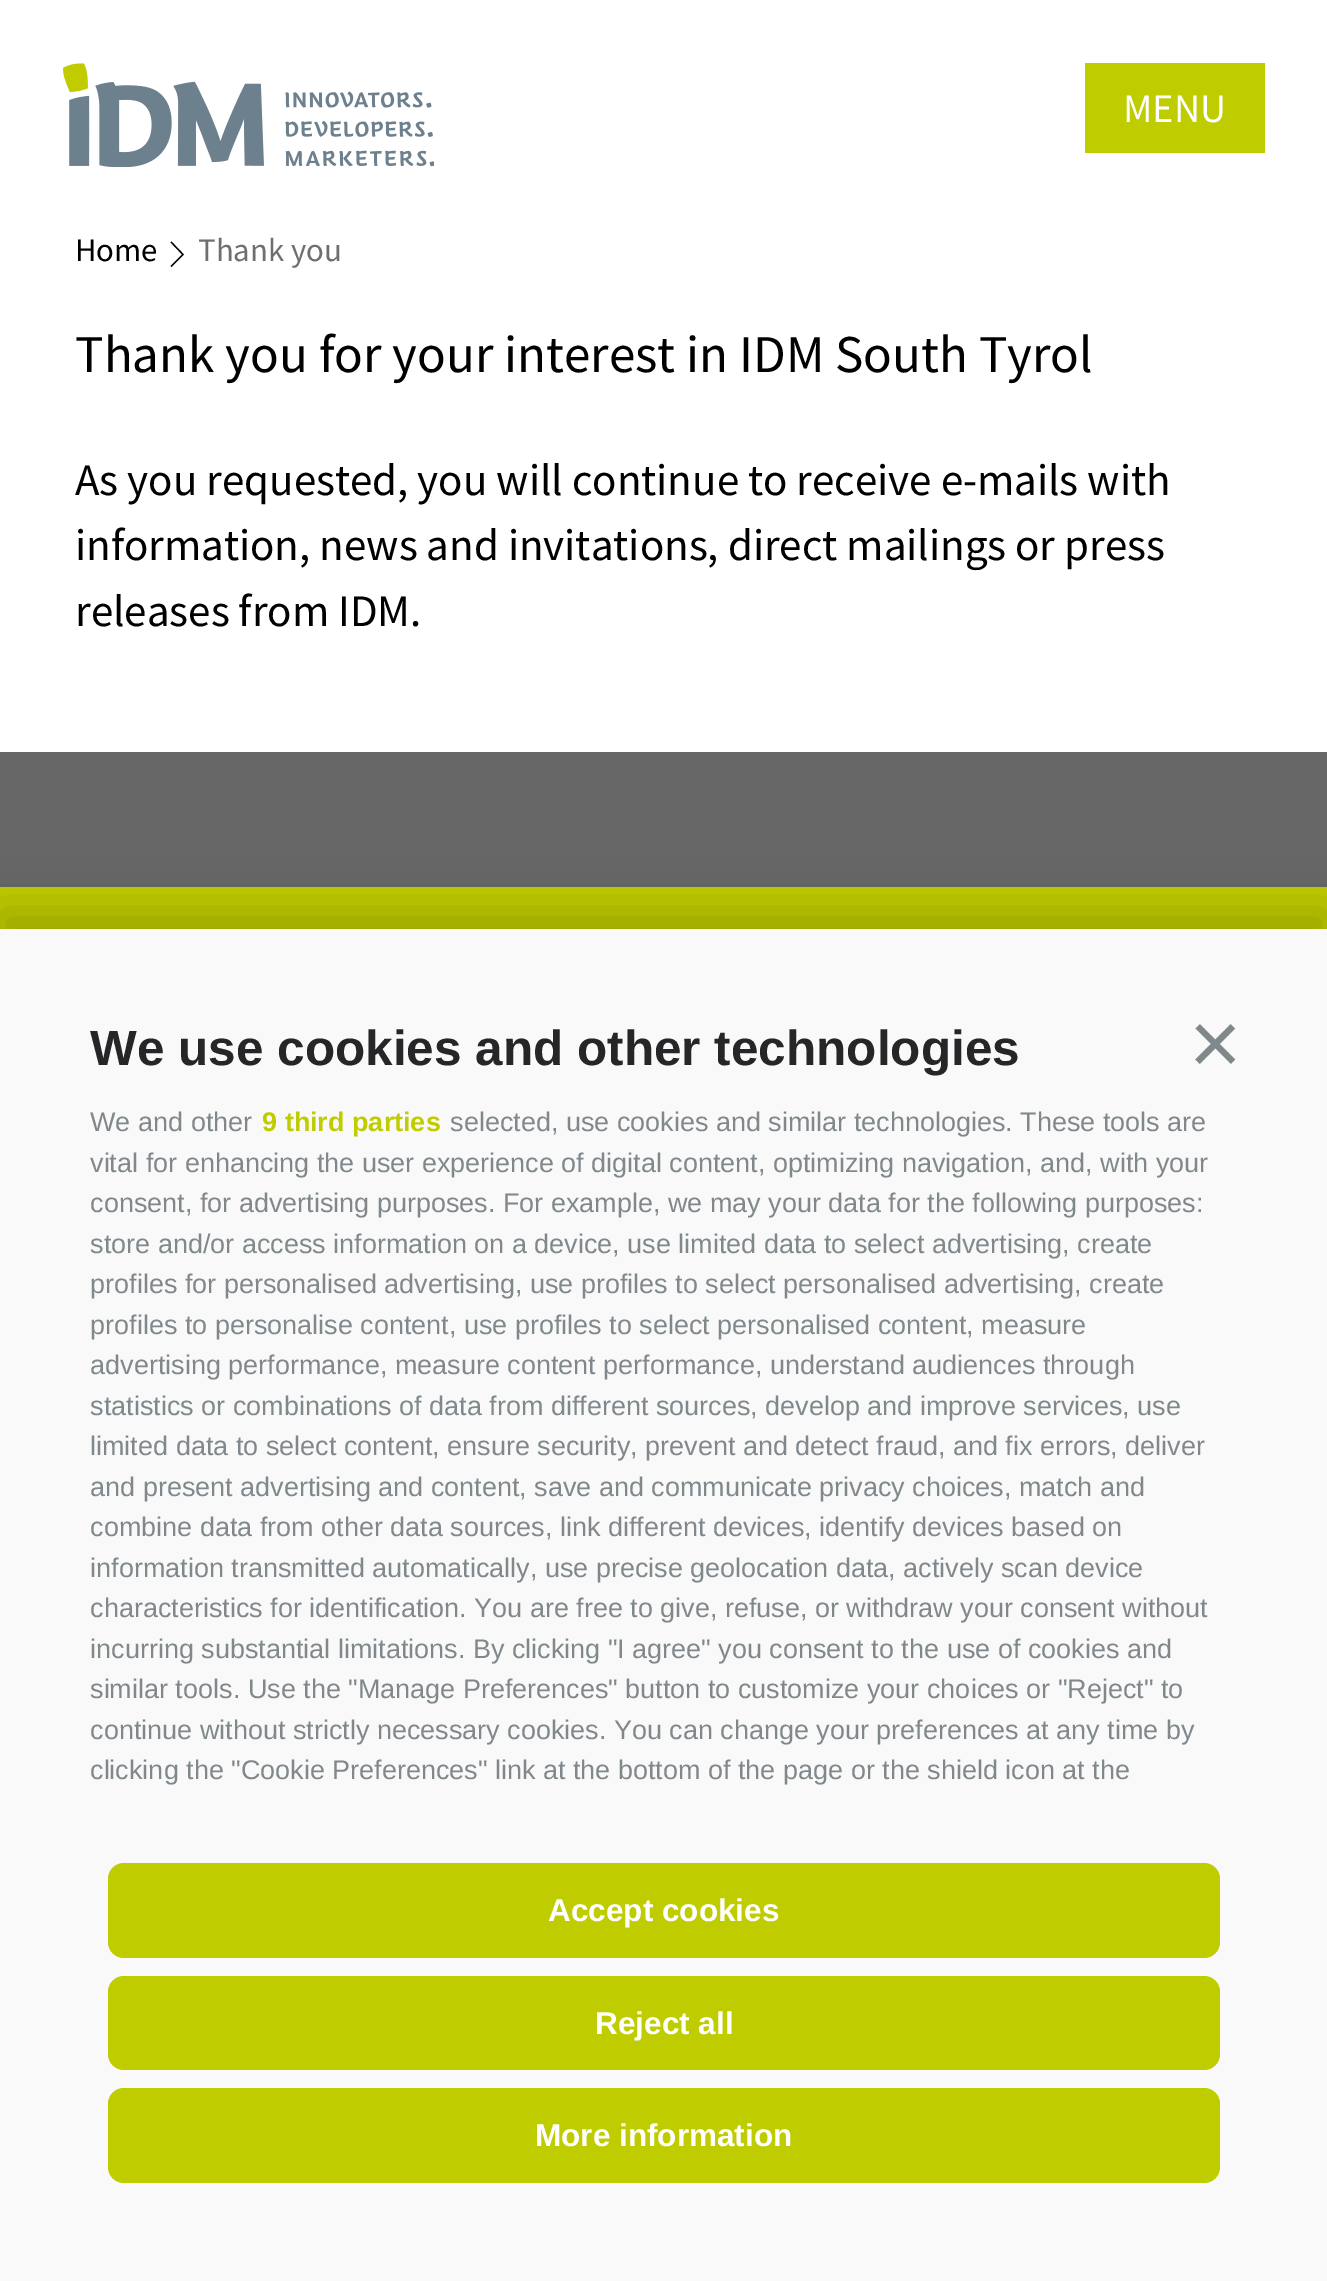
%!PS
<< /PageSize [1327 2281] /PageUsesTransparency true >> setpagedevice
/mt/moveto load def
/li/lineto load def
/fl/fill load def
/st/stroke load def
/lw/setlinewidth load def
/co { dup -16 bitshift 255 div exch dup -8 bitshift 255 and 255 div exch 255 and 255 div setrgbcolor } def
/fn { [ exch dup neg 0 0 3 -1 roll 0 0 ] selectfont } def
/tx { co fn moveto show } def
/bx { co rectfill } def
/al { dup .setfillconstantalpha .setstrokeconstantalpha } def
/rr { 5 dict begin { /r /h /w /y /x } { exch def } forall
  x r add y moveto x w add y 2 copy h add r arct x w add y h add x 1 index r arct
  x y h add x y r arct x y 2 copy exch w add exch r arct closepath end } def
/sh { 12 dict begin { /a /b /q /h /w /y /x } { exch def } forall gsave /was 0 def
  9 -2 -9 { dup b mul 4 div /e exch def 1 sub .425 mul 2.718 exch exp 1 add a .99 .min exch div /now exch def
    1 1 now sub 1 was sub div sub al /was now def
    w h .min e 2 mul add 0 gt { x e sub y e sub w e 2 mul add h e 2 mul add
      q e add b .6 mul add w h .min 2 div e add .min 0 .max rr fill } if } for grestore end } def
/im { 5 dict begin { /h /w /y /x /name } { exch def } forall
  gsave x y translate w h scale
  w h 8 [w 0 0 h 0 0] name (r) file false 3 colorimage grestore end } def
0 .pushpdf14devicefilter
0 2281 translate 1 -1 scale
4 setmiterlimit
0 0 1327 2281 16#FFFFFF bx
(media/1.raw) 63 63 371 104 im
1085 63 180 90 16#BFCC00 bx
16#000000 co
1.3 lw
171 266.5 mt 183 254.5 li 171 242 li st
0 752 1327 135 16#676767 bx
0 887 1327 42 16#BFCC00 bx
16#000000 co
0 911 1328 1353 0 22.5 .2 sh
0 929 1327 1352 16#F9F9F9 bx
16#BFCC00 co
108 1863 1112 95 16 rr fl
108 1976 1112 94 16 rr fl
108 2088 1112 95 16 rr fl
(MENU) 1123 122 /SourceSansPro-Regular 40.5 16#FFFFFF tx
(Home) 75 261 /SourceSansPro-Regular 32.75 16#000000 tx
(Thank you) 198 261 /SourceSansPro-Regular 32.75 16#6F6F6E tx
(Thank you for your interest in IDM South Tyrol) 75 372 /SourceSansPro-Regular 53.2 16#000000 tx
(As you requested, you will continue to receive e-mails with) 75 495 /SourceSansPro-Regular 45 16#000000 tx
(information, news and invitations, direct mailings or press) 75 560 /SourceSansPro-Regular 45 16#000000 tx
(releases from IDM.) 75 626 /SourceSansPro-Regular 45 16#000000 tx
(We use cookies and other technologies) 90 1065 /LiberationSans-Bold 49.5 16#262628 tx
(×) 1189 1074 /LiberationSans-Regular 90 16#80888C tx
(We and other) 90 1131 /LiberationSans-Regular 27 16#80888C tx
(9 third parties) 262 1131 /LiberationSans-Bold 27 16#BFCC00 tx
(selected, use cookies and similar technologies. These tools are) 450 1131 /LiberationSans-Regular 27 16#80888C tx
(vital for enhancing the user experience of digital content, optimizing navigation, and, with your) 90 1172 /LiberationSans-Regular 27 16#80888C tx
(consent, for advertising purposes. For example, we may your data for the following purposes:) 90 1212 /LiberationSans-Regular 27 16#80888C tx
(store and/or access information on a device, use limited data to select advertising, create) 90 1253 /LiberationSans-Regular 27 16#80888C tx
(profiles for personalised advertising, use profiles to select personalised advertising, create) 90 1293 /LiberationSans-Regular 27 16#80888C tx
(profiles to personalise content, use profiles to select personalised content, measure) 90 1334 /LiberationSans-Regular 27 16#80888C tx
(advertising performance, measure content performance, understand audiences through) 90 1374 /LiberationSans-Regular 27 16#80888C tx
(statistics or combinations of data from different sources, develop and improve services, use) 90 1415 /LiberationSans-Regular 27 16#80888C tx
(limited data to select content, ensure security, prevent and detect fraud, and fix errors, deliver) 90 1455 /LiberationSans-Regular 27 16#80888C tx
(and present advertising and content, save and communicate privacy choices, match and) 90 1496 /LiberationSans-Regular 27 16#80888C tx
(combine data from other data sources, link different devices, identify devices based on) 90 1536 /LiberationSans-Regular 27 16#80888C tx
(information transmitted automatically, use precise geolocation data, actively scan device) 90 1577 /LiberationSans-Regular 27 16#80888C tx
(characteristics for identification. You are free to give, refuse, or withdraw your consent without) 90 1617 /LiberationSans-Regular 27 16#80888C tx
(incurring substantial limitations. By clicking "I agree" you consent to the use of cookies and) 90 1658 /LiberationSans-Regular 27 16#80888C tx
(similar tools. Use the "Manage Preferences" button to customize your choices or "Reject" to) 90 1698 /LiberationSans-Regular 27 16#80888C tx
(continue without strictly necessary cookies. You can change your preferences at any time by) 90 1739 /LiberationSans-Regular 27 16#80888C tx
(clicking the "Cookie Preferences" link at the bottom of the page or the shield icon at the) 90 1779 /LiberationSans-Regular 27 16#80888C tx
(Accept cookies) 548 1921 /LiberationSans-Bold 31.5 16#FFFFFF tx
(Reject all) 595 2034 /LiberationSans-Bold 31.5 16#FFFFFF tx
(More information) 535 2146 /LiberationSans-Bold 31.5 16#FFFFFF tx
.poppdf14devicefilter showpage
